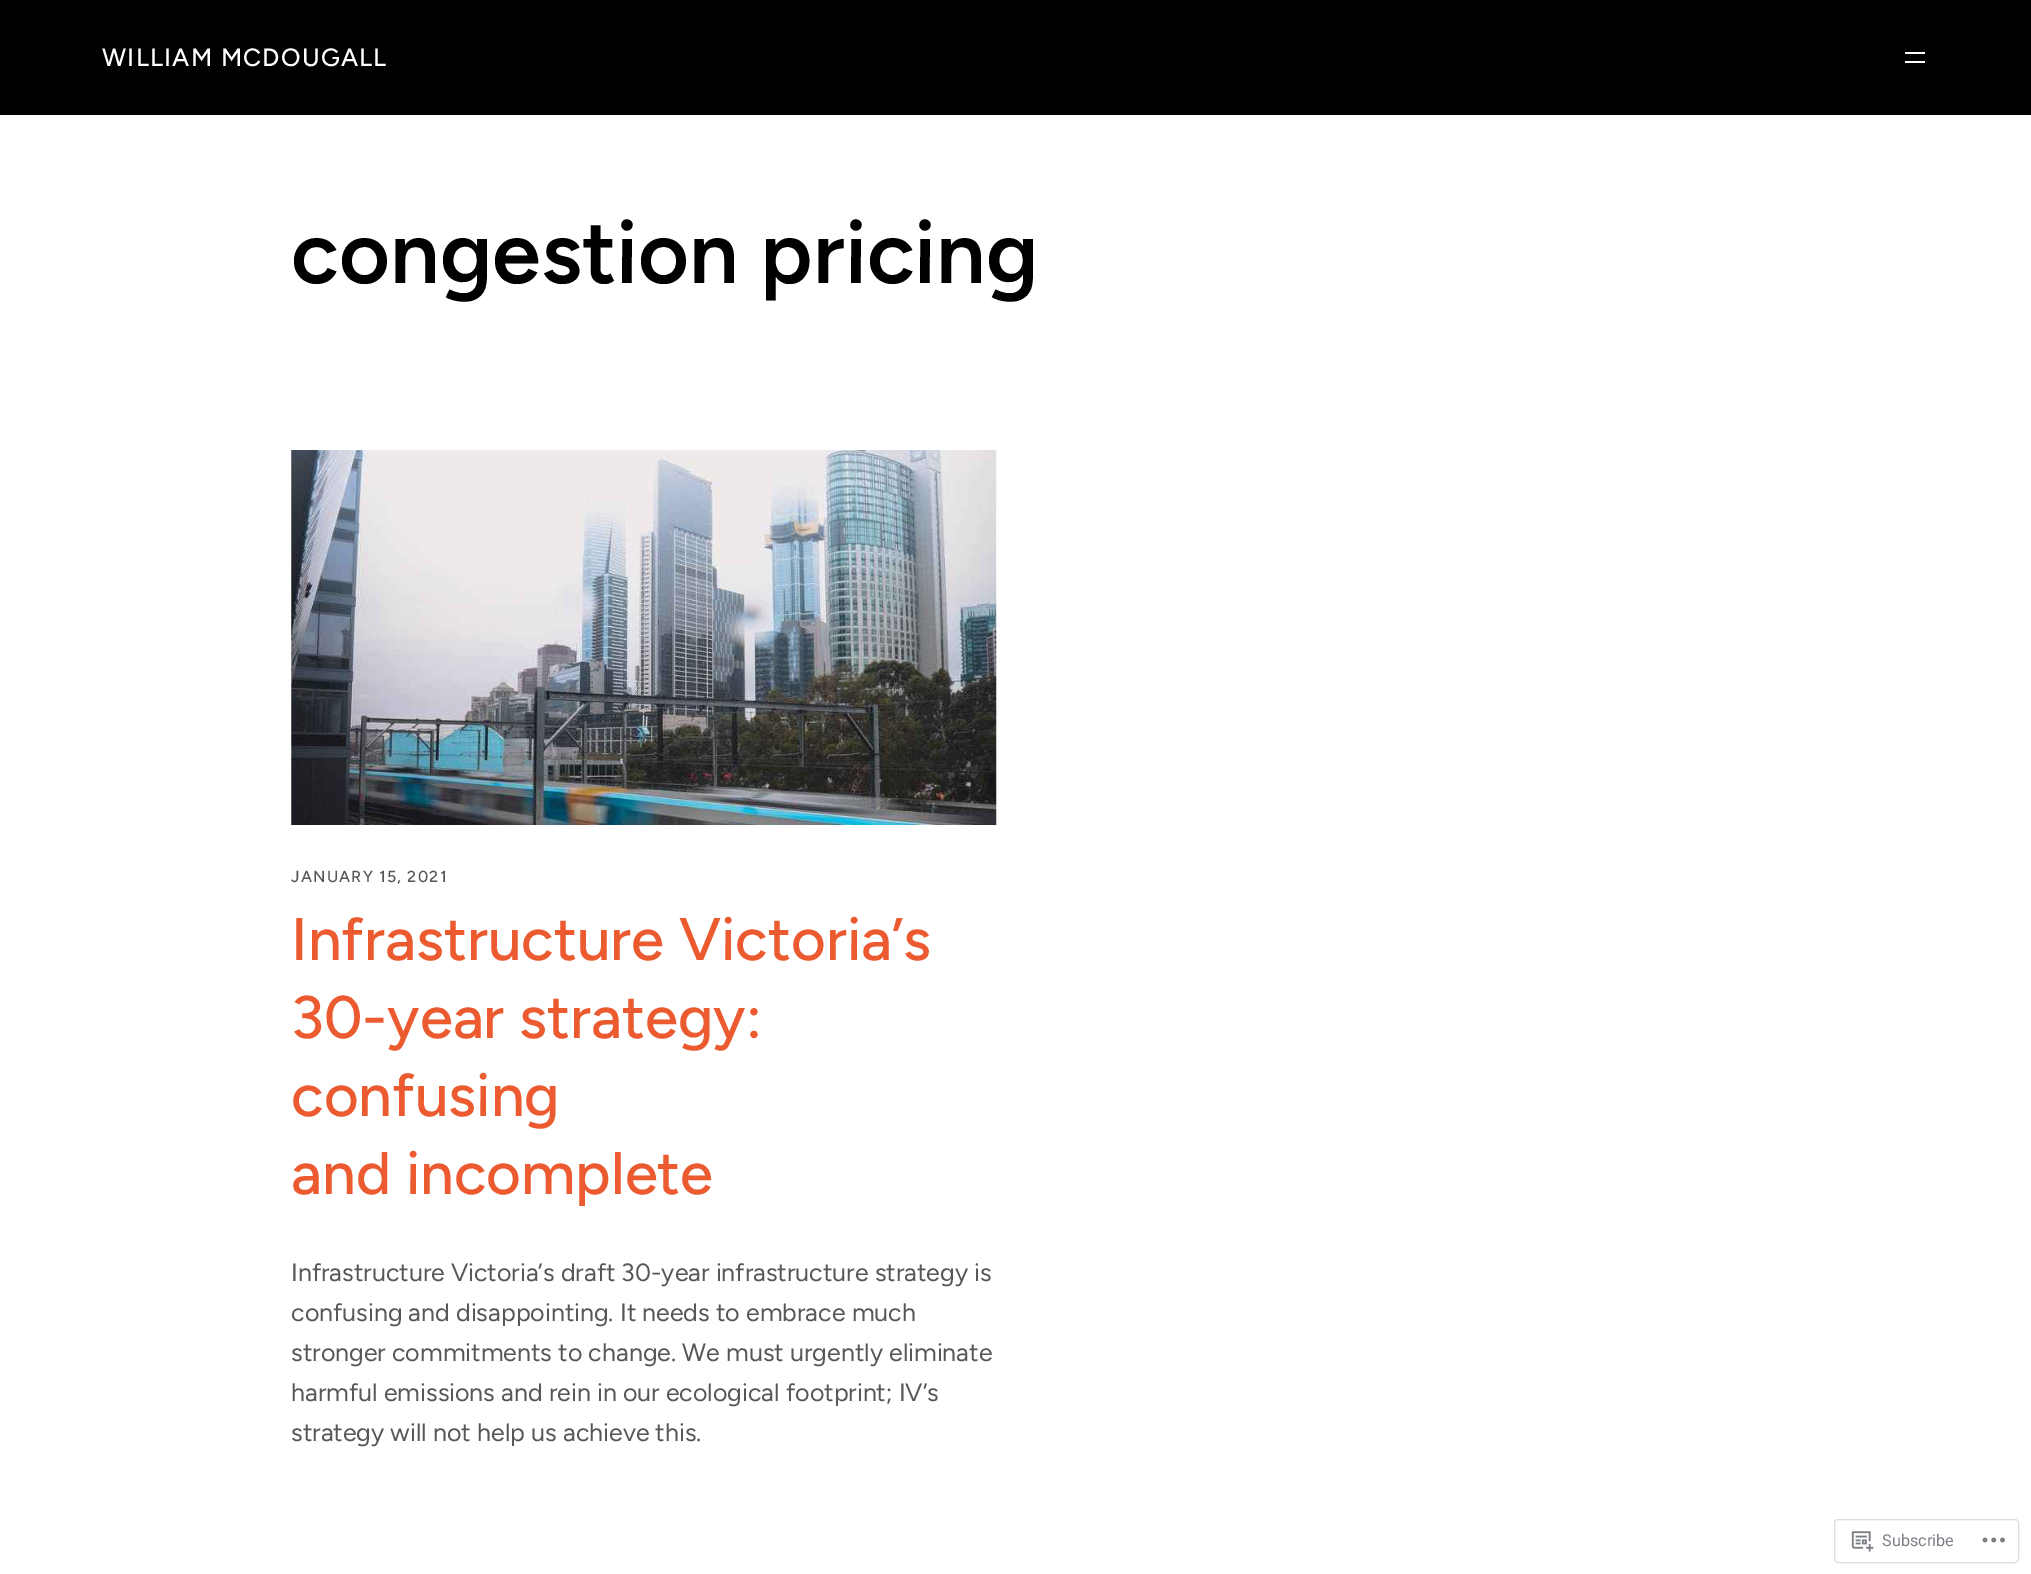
%!PS
<< /PageSize [2031 1574] >> setpagedevice
/mt/moveto load def
/st/stroke load def
/co { dup -16 bitshift 255 div exch dup -8 bitshift 255 and 255 div exch 255 and 255 div setrgbcolor } def
/fn { [ exch dup neg 0 0 3 -1 roll 0 0 ] selectfont } def
/tx { co fn moveto show } def
/bx { co rectfill } def
/rr { 5 dict begin { /r /h /w /y /x } { exch def } forall
  x r add y moveto x w add y 2 copy h add r arct x w add y h add x 1 index r arct
  x y h add x y r arct x y 2 copy exch w add exch r arct closepath end } def
/im { 5 dict begin { /h /w /y /x /name } { exch def } forall
  gsave x y translate w h scale
  w h 8 [w 0 0 h 0 0] name (r) file false 3 colorimage grestore end } def
0 1574 translate 1 -1 scale
4 setmiterlimit
0 0 2031 1574 16#FFFFFF bx
0 0 2031 115 16#000000 bx
1905 52 20 2 16#FFFFFF bx
1905 61 20 2 16#FFFFFF bx
(media/1.raw) 291 450 706 375 im
16#DDDDDF co
1834.5 1519.5 184 43 3.5 rr st
(media/2.raw) 1851 1531 23 21 im
(media/3.raw) 1982 1537 23 6 im
/Figtree-Medium 25 fn
16#FFFFFF co
102 66 mt 1.25 0 (WILLIAM MCDOUGALL) ashow
(congestion pricing) 291 283 /Figtree-SemiBold 88 16#000000 tx
/Figtree-Medium 16 fn
16#575757 co
291 882 mt 1.25 0 (JANUARY 15, 2021) ashow
(Infrastructure Victoria’s) 291 960 /Figtree-Medium 60 16#EC5A30 tx
(30-year strategy:) 291 1038 /Figtree-Medium 60 16#EC5A30 tx
(confusing) 291 1116 /Figtree-Medium 60 16#EC5A30 tx
(and incomplete) 291 1194 /Figtree-Medium 60 16#EC5A30 tx
(Infrastructure Victoria’s draft 30-year infrastructure strategy is) 291 1281 /Figtree-Regular 25 16#575757 tx
(confusing and disappointing. It needs to embrace much) 291 1321 /Figtree-Regular 25 16#575757 tx
(stronger commitments to change. We must urgently eliminate) 291 1361 /Figtree-Regular 25 16#575757 tx
(harmful emissions and rein in our ecological footprint; IV’s) 291 1401 /Figtree-Regular 25 16#575757 tx
(strategy will not help us achieve this.) 291 1441 /Figtree-Regular 25 16#575757 tx
(Subscribe) 1882 1546 /Roboto-Regular 16.25 16#7B7F85 tx
showpage
